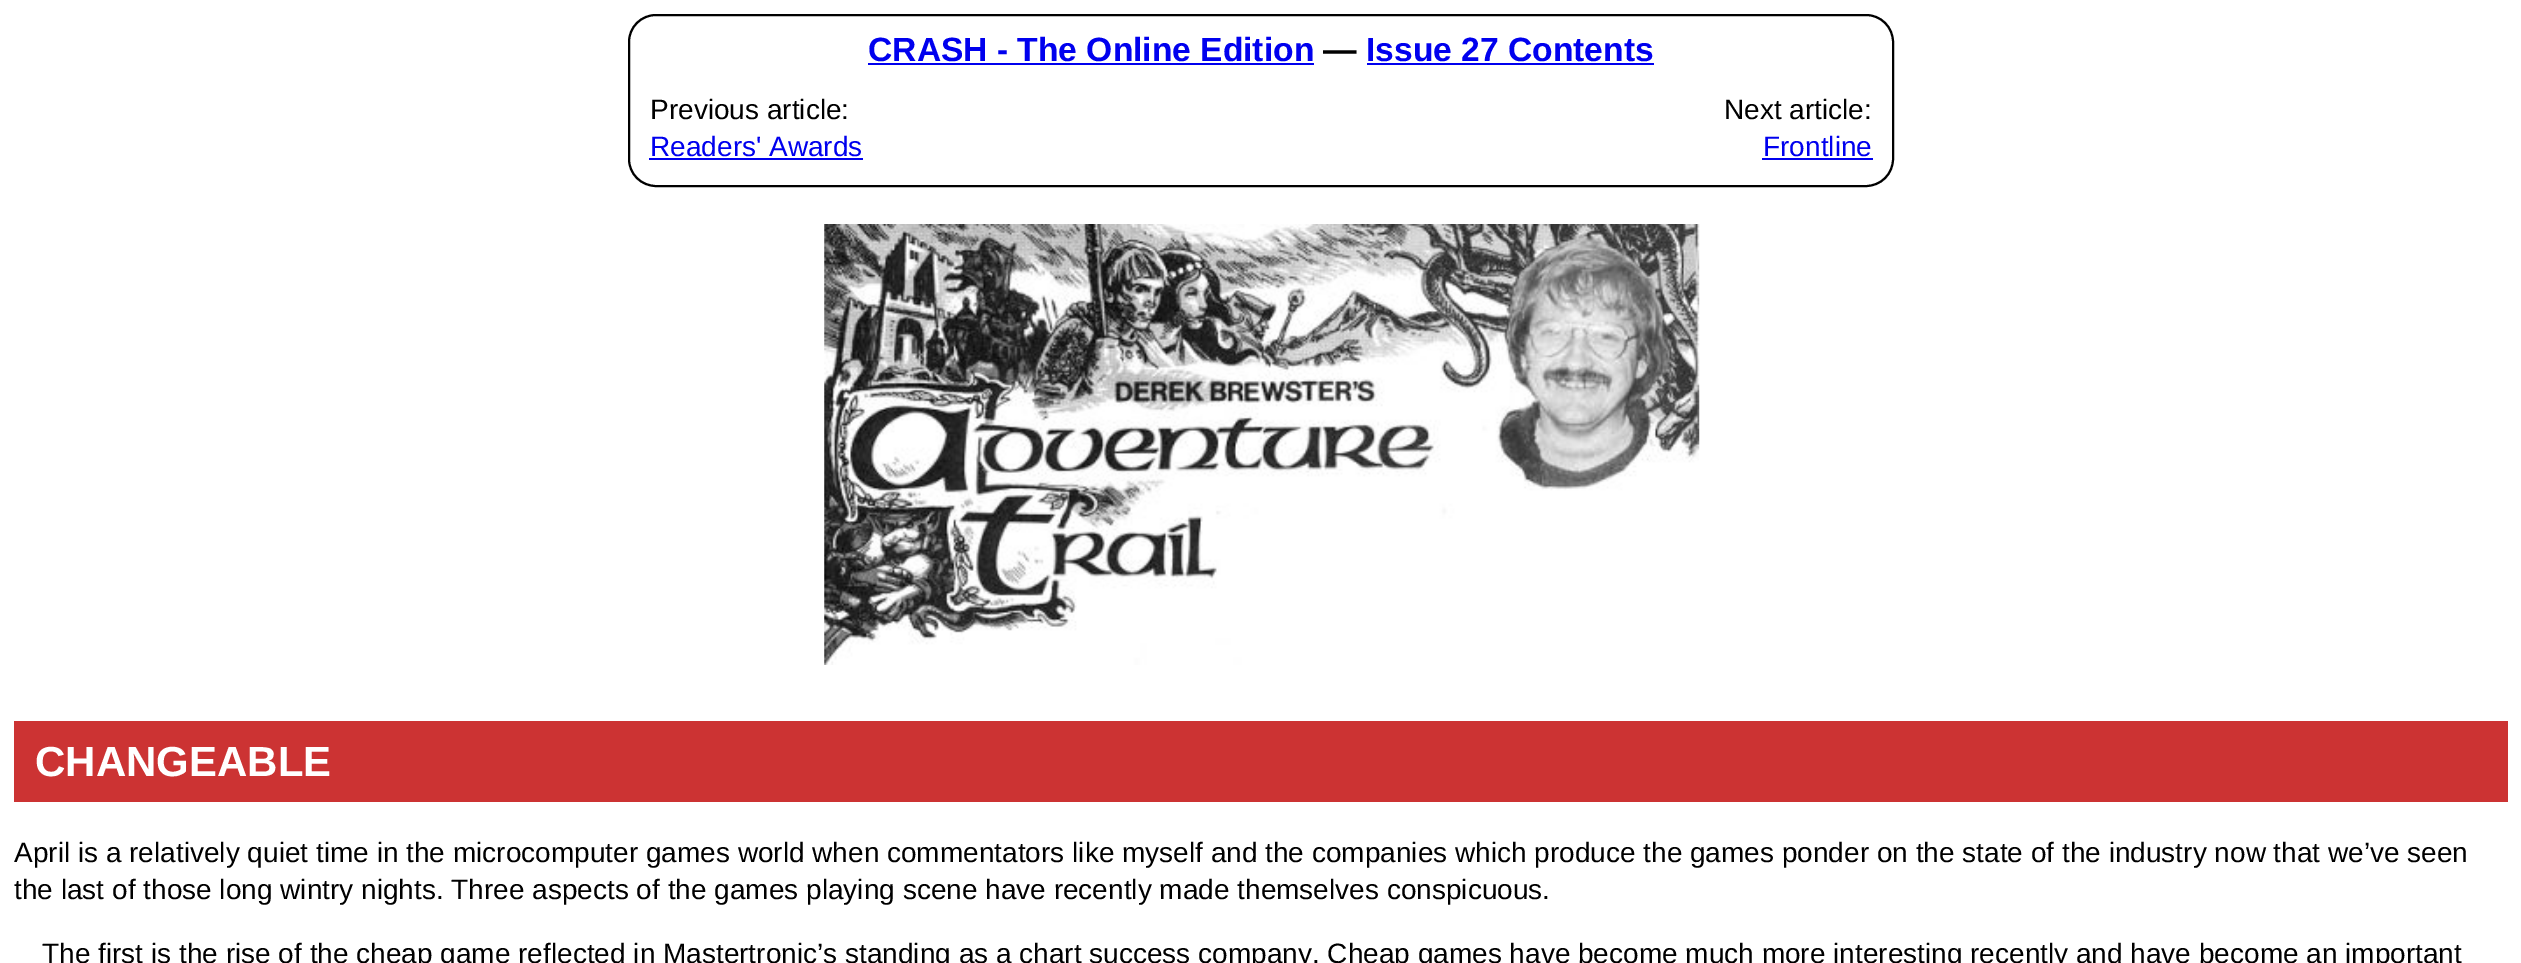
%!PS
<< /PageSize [2521 963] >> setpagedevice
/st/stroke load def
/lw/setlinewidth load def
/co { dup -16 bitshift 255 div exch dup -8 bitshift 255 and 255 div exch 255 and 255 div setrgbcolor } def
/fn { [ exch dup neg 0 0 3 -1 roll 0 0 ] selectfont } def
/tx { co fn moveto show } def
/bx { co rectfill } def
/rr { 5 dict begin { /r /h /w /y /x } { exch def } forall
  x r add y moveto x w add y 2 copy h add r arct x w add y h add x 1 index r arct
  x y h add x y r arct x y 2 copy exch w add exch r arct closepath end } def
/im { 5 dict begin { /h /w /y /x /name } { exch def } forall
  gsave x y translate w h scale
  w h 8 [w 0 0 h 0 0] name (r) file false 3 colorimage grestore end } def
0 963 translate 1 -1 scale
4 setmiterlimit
0 0 2521 963 16#FFFFFF bx
16#000000 co
2 lw
629 15 1264 171 27 rr st
868 63 446 2 16#0000EE bx
1367 63 287 2 16#0000EE bx
649 158 214 2 16#0000EE bx
1762 158 111 2 16#0000EE bx
(media/1.raw) 824 224 876 441 im
14 721 2494 81 16#CC3333 bx
(CRASH - The Online Edition) 868 61 /LiberationSans-Bold 33.6 16#0000EE tx
(—) 1323 61 /LiberationSans-Bold 33.6 16#000000 tx
(Issue 27 Contents) 1366 61 /LiberationSans-Bold 33.6 16#0000EE tx
(Previous article:) 650 119 /LiberationSans-Regular 28 16#000000 tx
(Readers' Awards) 650 156 /LiberationSans-Regular 28 16#0000EE tx
(Next article:) 1724 119 /LiberationSans-Regular 28 16#000000 tx
(Frontline) 1763 156 /LiberationSans-Regular 28 16#0000EE tx
(CHANGEABLE) 35 776 /LiberationSans-Bold 42 16#FFFFFF tx
(April is a relatively quiet time in the microcomputer games world when commentators like myself and the companies which produce the games ponder on the state of the industry now that we’ve seen) 14 862 /LiberationSans-Regular 28 16#000000 tx
(the last of those long wintry nights. Three aspects of the games playing scene have recently made themselves conspicuous.) 14 899 /LiberationSans-Regular 28 16#000000 tx
(The first is the rise of the cheap game reflected in Mastertronic’s standing as a chart success company. Cheap games have become much more interesting recently and have become an important) 42 963 /LiberationSans-Regular 28 16#000000 tx
showpage
